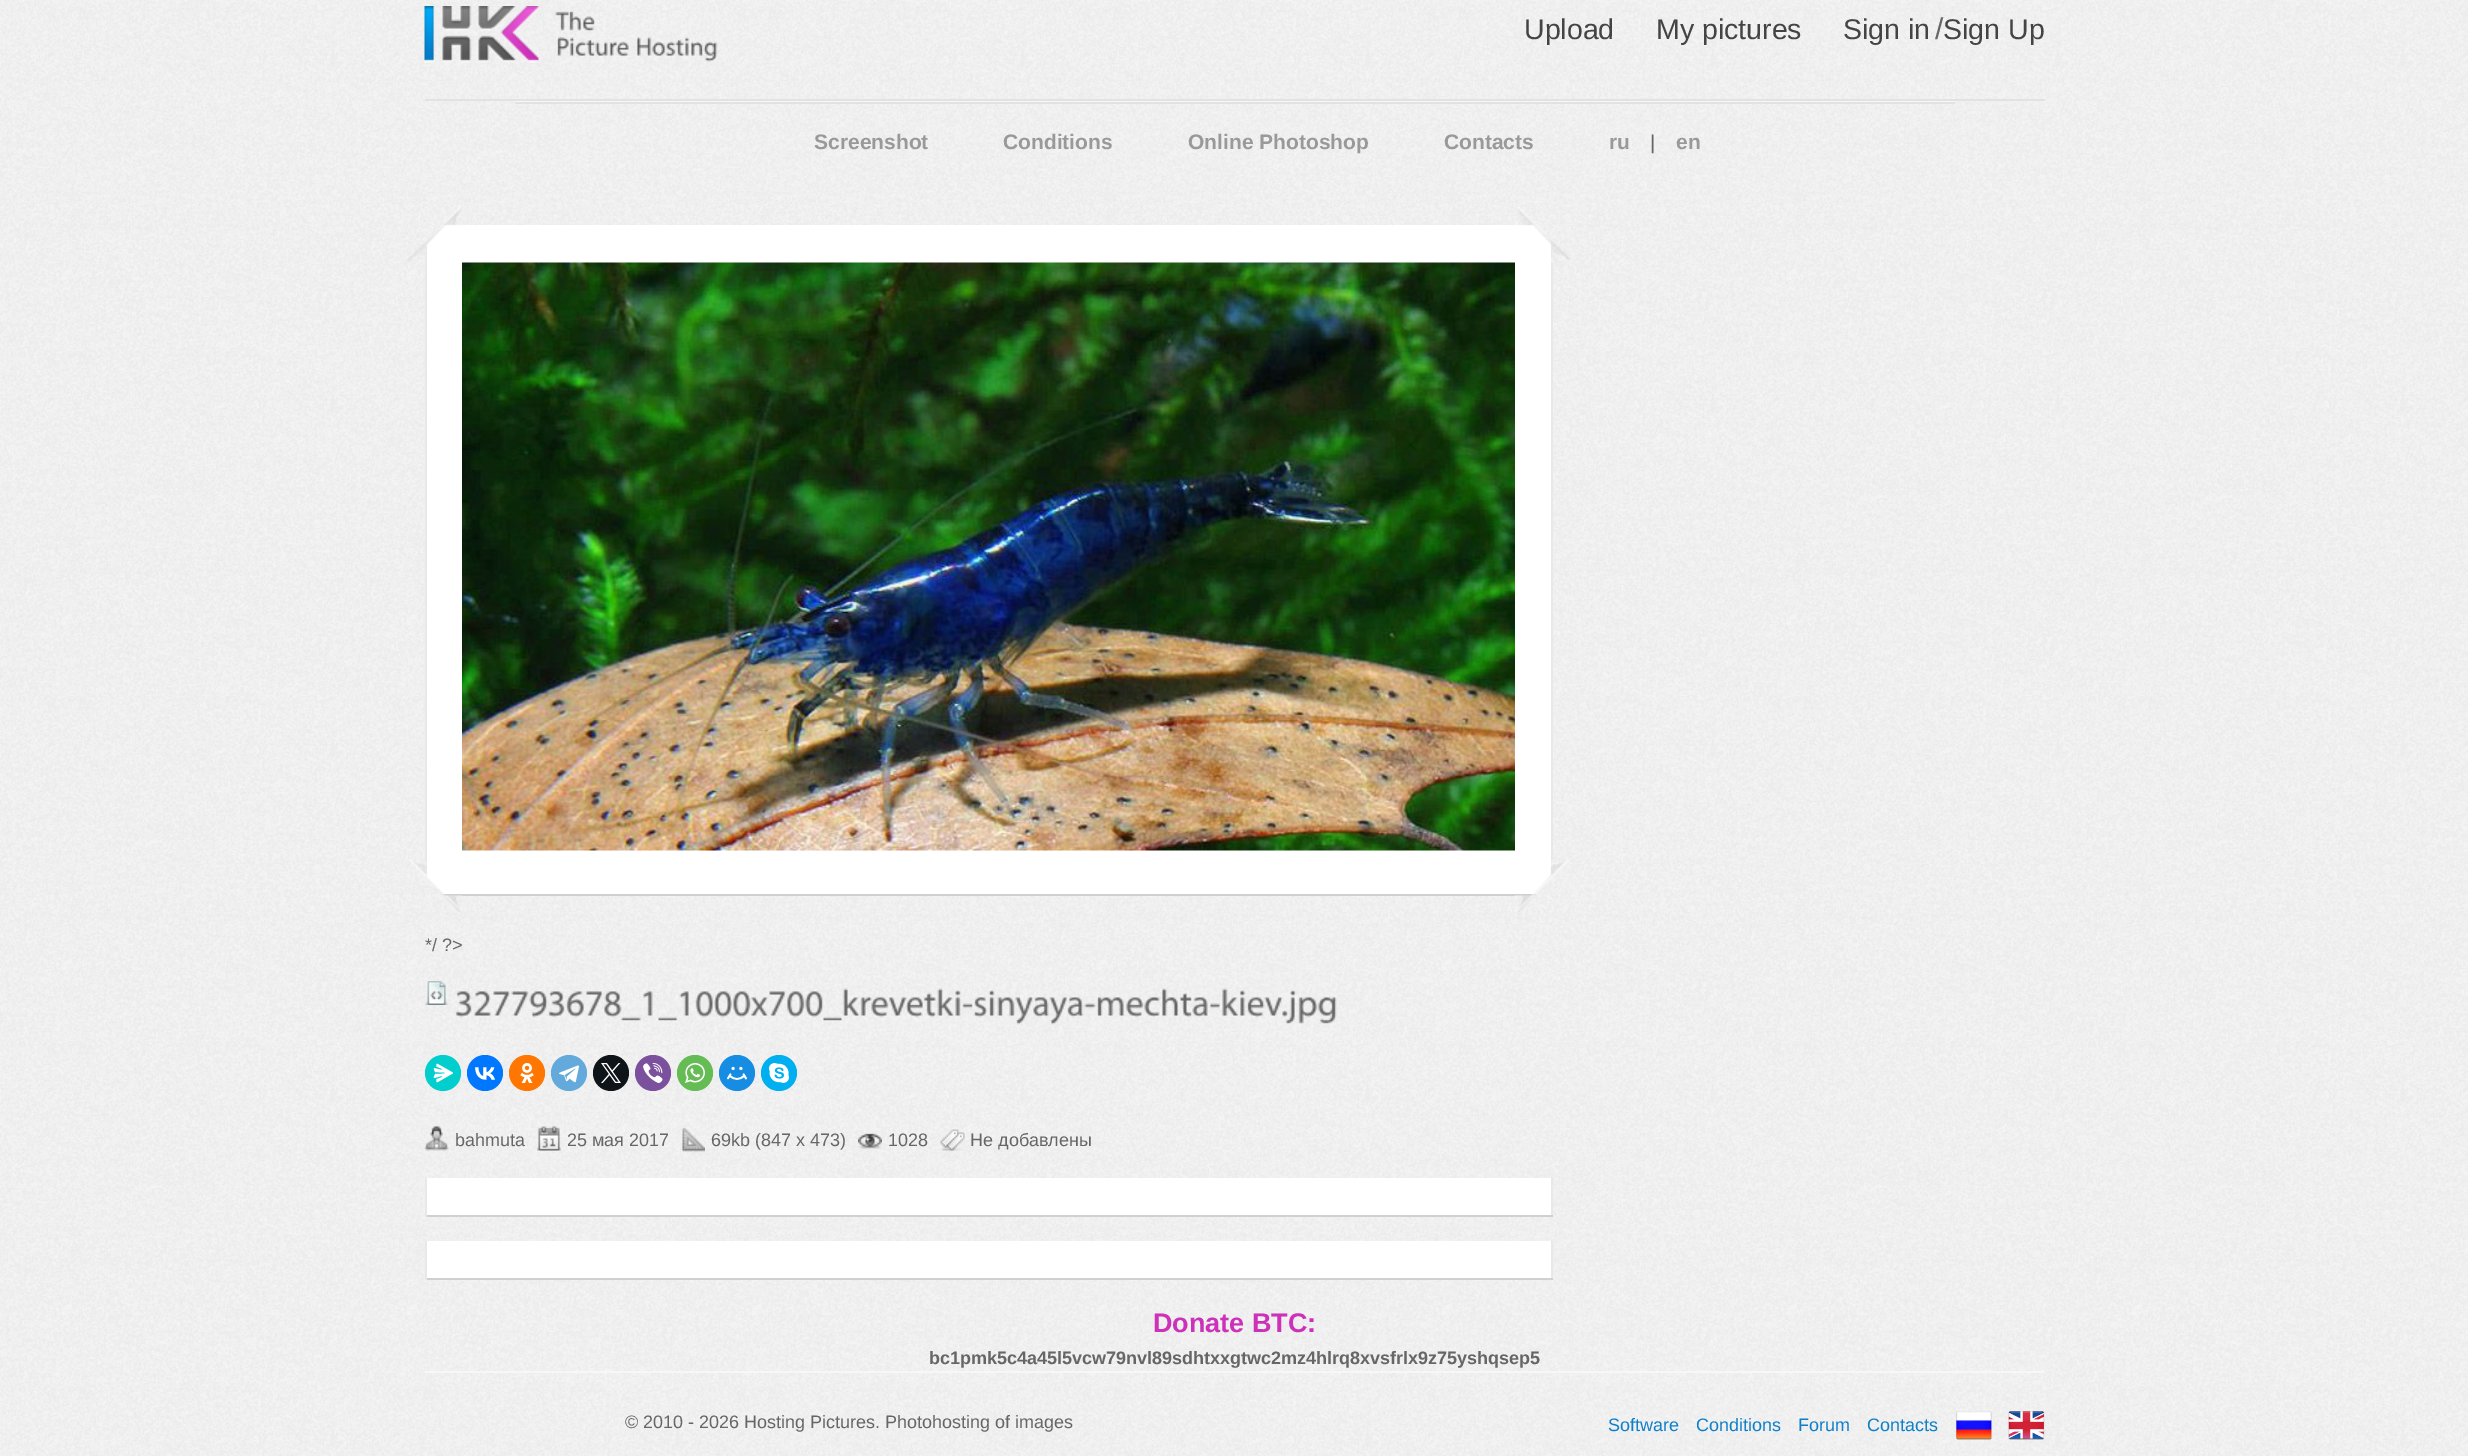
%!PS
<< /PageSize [2468 1456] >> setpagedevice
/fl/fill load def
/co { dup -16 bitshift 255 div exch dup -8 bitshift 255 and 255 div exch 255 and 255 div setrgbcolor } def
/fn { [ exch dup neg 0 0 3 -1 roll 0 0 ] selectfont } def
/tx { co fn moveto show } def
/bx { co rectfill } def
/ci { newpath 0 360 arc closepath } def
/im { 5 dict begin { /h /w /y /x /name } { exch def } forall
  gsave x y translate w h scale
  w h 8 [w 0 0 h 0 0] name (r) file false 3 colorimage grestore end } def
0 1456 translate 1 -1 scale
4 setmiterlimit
0 0 2468 1456 16#FFFFFF bx
(media/1.raw) 0 0 2468 1456 im
425 99 1620 2 16#E2E2E2 bx
(media/2.raw) 424 6 115 57 im
(media/3.raw) 555 11 40 20 im
(media/4.raw) 557 37 72 19 im
(media/5.raw) 637 37 81 25 im
515 101 1440 1 16#F7F7F7 bx
515 102 1440 2 16#E2E2E2 bx
427 225 1124 669 16#FFFFFF bx
425 242 2 638 16#E8E8E8 bx
(media/6.raw) 406 207 56 55 im
1551 238 2 642 16#E8E8E8 bx
(media/7.raw) 1515 207 56 56 im
439 894 1099 2 16#D0D0D0 bx
(media/8.raw) 462 262 1053 589 im
(media/9.raw) 407 859 55 56 im
(media/10.raw) 1515 859 56 56 im
(media/11.raw) 425 981 24 24 im
(media/12.raw) 455 988 882 37 im
16#03CECE co
443 1073 18 ci fl
(media/13.raw) 433 1063 20 20 im
16#0077FF co
485 1073 18 ci fl
(media/14.raw) 475 1067 20 13 im
16#FF7700 co
527 1073 18 ci fl
(media/15.raw) 520 1063 14 20 im
16#64A9DC co
569 1073 18 ci fl
(media/16.raw) 559 1065 20 18 im
16#0F1419 co
611 1073 18 ci fl
(media/17.raw) 601 1063 20 20 im
16#7B519D co
653 1073 18 ci fl
(media/18.raw) 643 1063 20 20 im
16#65BC54 co
695 1073 18 ci fl
(media/19.raw) 685 1063 20 20 im
16#168DE2 co
737 1073 18 ci fl
(media/20.raw) 727 1066 20 14 im
16#00AFF0 co
779 1073 18 ci fl
(media/21.raw) 769 1063 20 20 im
(media/22.raw) 424 1126 25 25 im
(media/23.raw) 537 1126 24 25 im
(media/24.raw) 682 1127 23 25 im
(media/25.raw) 858 1133 24 16 im
(media/26.raw) 940 1129 25 22 im
427 1178 1124 37 16#FFFFFF bx
1551 1178 2 39 16#E8E8E8 bx
425 1215 1128 2 16#D0D0D0 bx
425 1178 2 39 16#E8E8E8 bx
427 1241 1124 37 16#FFFFFF bx
1551 1241 2 39 16#E8E8E8 bx
425 1278 1128 2 16#D0D0D0 bx
425 1241 2 39 16#E8E8E8 bx
425 1371 1620 2 16#F7F7F7 bx
(media/27.raw) 1956 1411 36 29 im
(media/28.raw) 2008 1411 37 29 im
(Upload) 1524 39 /LiberationSans-Regular 28.5 16#444444 tx
(My pictures) 1656 39 /LiberationSans-Regular 28.5 16#444444 tx
(Sign in) 1843 39 /LiberationSans-Regular 28.5 16#444444 tx
(/) 1935 39 /LiberationSans-Regular 30 16#666666 tx
(Sign Up) 1943 39 /LiberationSans-Regular 28.5 16#444444 tx
(Screenshot) 814 149 /LiberationSans-Bold 21 16#999999 tx
(Conditions) 1003 149 /LiberationSans-Bold 21 16#999999 tx
(Online Photoshop) 1188 149 /LiberationSans-Bold 21 16#999999 tx
(Contacts) 1444 149 /LiberationSans-Bold 21 16#999999 tx
(ru) 1609 149 /LiberationSans-Bold 21 16#999999 tx
(|) 1650 149 /LiberationSans-Regular 20 16#666666 tx
(en) 1676 149 /LiberationSans-Bold 21 16#999999 tx
(*/ ?>) 425 951 /LiberationSans-Regular 18 16#666666 tx
(bahmuta) 455 1146 /LiberationSans-Regular 18 16#666666 tx
(25 мая 2017) 567 1146 /LiberationSans-Regular 18 16#666666 tx
(69kb \(847 x 473\)) 711 1146 /LiberationSans-Regular 18 16#666666 tx
(1028) 888 1146 /LiberationSans-Regular 18 16#666666 tx
(Не добавлены) 970 1146 /LiberationSans-Regular 18 16#666666 tx
(Donate BTC:) 1153 1332 /LiberationSans-Bold 27 16#CD31B9 tx
(bc1pmk5c4a45l5vcw79nvl89sdhtxxgtwc2mz4hlrq8xvsfrlx9z75yshqsep5) 929 1364 /LiberationSans-Bold 18 16#666666 tx
(© 2010 - 2026 Hosting Pictures. Photohosting of images) 625 1428 /LiberationSans-Regular 18 16#666666 tx
(Software) 1608 1431 /LiberationSans-Regular 18 16#0F80C8 tx
(Conditions) 1696 1431 /LiberationSans-Regular 18 16#0F80C8 tx
(Forum) 1798 1431 /LiberationSans-Regular 18 16#0F80C8 tx
(Contacts) 1867 1431 /LiberationSans-Regular 18 16#0F80C8 tx
showpage
